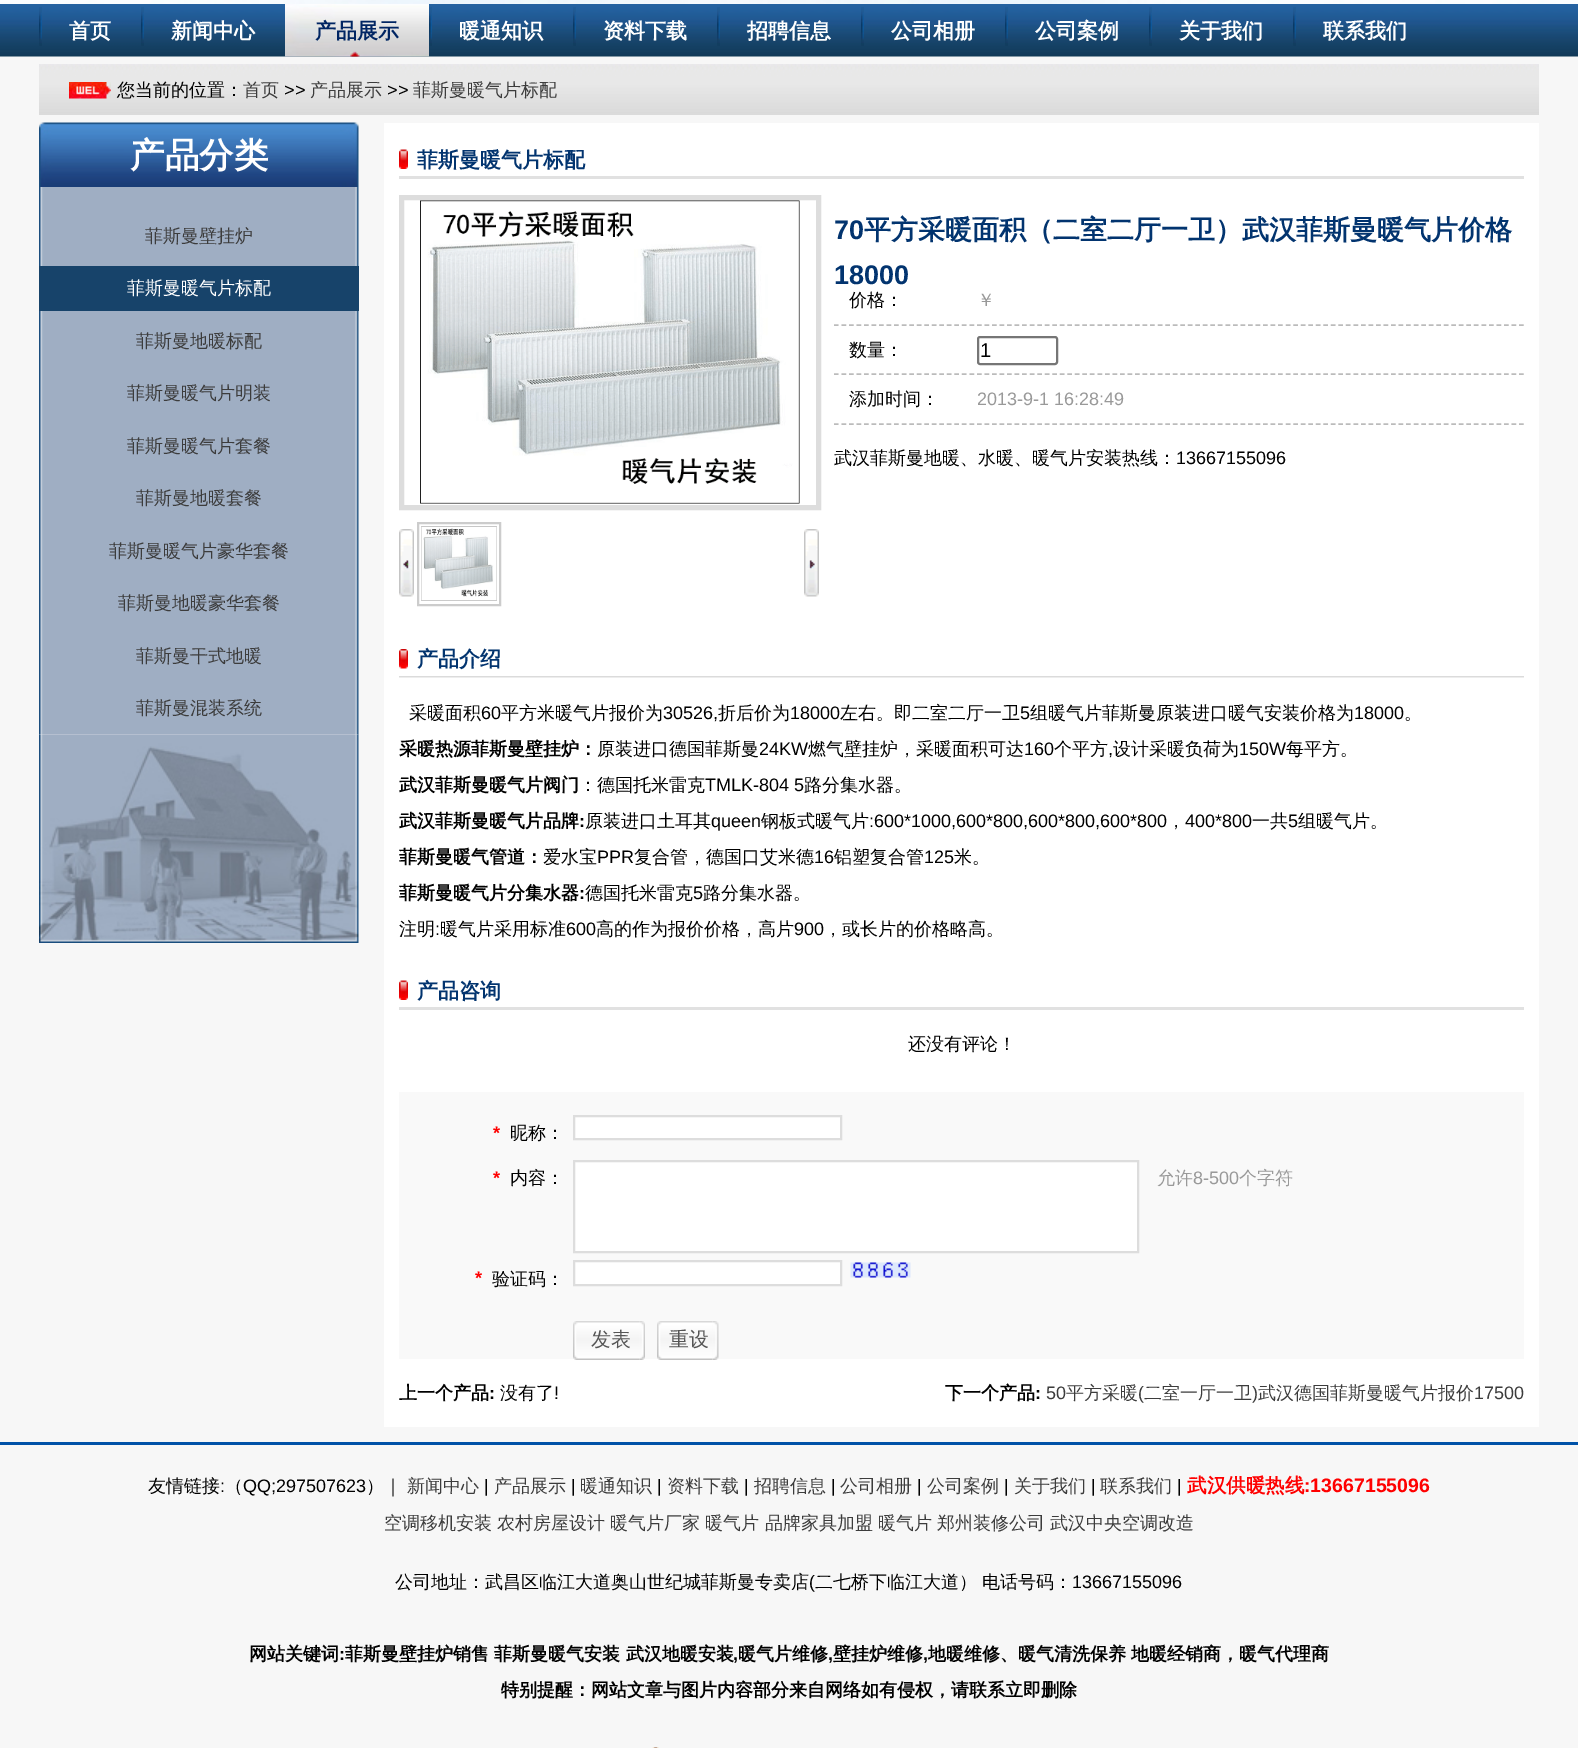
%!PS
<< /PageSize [1578 1748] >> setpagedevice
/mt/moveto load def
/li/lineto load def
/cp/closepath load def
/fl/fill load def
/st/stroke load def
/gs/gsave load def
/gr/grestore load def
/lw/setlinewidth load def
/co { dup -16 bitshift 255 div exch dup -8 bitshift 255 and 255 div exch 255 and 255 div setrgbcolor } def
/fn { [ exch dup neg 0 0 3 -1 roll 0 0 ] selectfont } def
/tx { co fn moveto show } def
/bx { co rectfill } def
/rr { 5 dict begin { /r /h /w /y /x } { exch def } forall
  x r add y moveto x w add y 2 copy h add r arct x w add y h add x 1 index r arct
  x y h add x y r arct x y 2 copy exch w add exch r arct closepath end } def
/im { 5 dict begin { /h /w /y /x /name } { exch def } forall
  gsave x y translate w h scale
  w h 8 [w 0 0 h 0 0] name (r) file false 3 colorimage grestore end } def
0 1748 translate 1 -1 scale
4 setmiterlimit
0 0 1578 1748 16#F7F7F7 bx
(media/1.raw) 0 0 1578 4 im
(media/2.raw) 0 4 1578 53 im
(media/3.raw) 39 7 3 39 im
(media/3.raw) 141 7 3 39 im
(media/4.raw) 285 4 144 53 im
(media/5.raw) 429 7 3 39 im
(media/5.raw) 573 7 3 39 im
(media/5.raw) 717 7 3 39 im
(media/3.raw) 861 7 3 39 im
(media/3.raw) 1005 7 3 39 im
(media/5.raw) 1149 7 3 39 im
(media/5.raw) 1293 7 3 39 im
(media/6.raw) 39 64 1500 51 im
(media/7.raw) 69 82 42 17 im
(media/8.raw) 39 122 320 65 im
(media/10.raw) 39 734 320 209 im
(media/9.raw) 39 187 320 548 im
39 266 320 45 16#17436A bx
384 123 1155 1304 16#FFFFFF bx
399 176 1125 3 16#E1E1E1 bx
(media/11.raw) 399 149 9 20 im
16#DDDDDD co
5 lw
401.5 197.5 417 310 rectstroke
(media/12.raw) 420 200 380 304 im
(media/13.raw) 399 529 15 68 im
16#CCCCCC co
2 lw
418 523 82 82 rectstroke
(media/14.raw) 421 526 76 75 im
(media/15.raw) 804 529 15 68 im
16#BBBBBB co
1.5 lw
[4.5 3.03] 0 setdash
834 325 mt 1524 325 li st
834 374 mt 1524 374 li st
16#767676 co
2 lw
[] 0 setdash
978 337 79 27 2 rr st
16#BBBBBB co
1.5 lw
[4.5 3.03] 0 setdash
834 424 mt 1524 424 li st
(media/16.raw) 399 676 1125 2 im
(media/17.raw) 399 649 9 20 im
399 1007 1125 3 16#E1E1E1 bx
(media/11.raw) 399 980 9 20 im
399 1092 1125 267 16#F9F9F9 bx
16#FFFFFF co
574 1116 mt 841 1116 li 841 1139 li 574 1139 li cp gs fl gr
16#DDDDDD co
2 lw
[] 0 setdash
st
16#FFFFFF co
574 1161 mt 1138 1161 li 1138 1252 li 574 1252 li cp gs fl gr
16#DDDDDD co
st
16#FFFFFF co
574 1261 mt 841 1261 li 841 1285 li 574 1285 li cp gs fl gr
16#DDDDDD co
st
(media/18.raw) 850 1262 61 16 im
(media/19.raw) 639 1321 6 39 im
(media/20.raw) 573 1321 66 39 im
(media/21.raw) 712 1321 7 39 im
(media/22.raw) 657 1321 56 39 im
0 1442 1578 3 16#0052A8 bx
(media/23.raw) 652 1747 7 1 im
(首页) 69 38 /WenQuanYiZenHei-Bold 21 16#FFFFFF tx
(新闻中心) 171 38 /WenQuanYiZenHei-Bold 21 16#FFFFFF tx
(产品展示) 315 38 /WenQuanYiZenHei-Bold 21 16#002563 tx
(暖通知识) 459 38 /WenQuanYiZenHei-Bold 21 16#FFFFFF tx
(资料下载) 603 38 /WenQuanYiZenHei-Bold 21 16#FFFFFF tx
(招聘信息) 747 38 /WenQuanYiZenHei-Bold 21 16#FFFFFF tx
(公司相册) 891 38 /WenQuanYiZenHei-Bold 21 16#FFFFFF tx
(公司案例) 1035 38 /WenQuanYiZenHei-Bold 21 16#FFFFFF tx
(关于我们) 1179 38 /WenQuanYiZenHei-Bold 21 16#FFFFFF tx
(联系我们) 1323 38 /WenQuanYiZenHei-Bold 21 16#FFFFFF tx
(您当前的位置：) 117 96 /WenQuanYiZenHei-Medium 18 16#000000 tx
(首页) 243 96 /WenQuanYiZenHei-Medium 18 16#3C3C3C tx
(>>) 284 96 /LiberationSans-Regular 18 16#000000 tx
(产品展示) 310 96 /WenQuanYiZenHei-Medium 18 16#3C3C3C tx
(>>) 387 96 /LiberationSans-Regular 18 16#000000 tx
(菲斯曼暖气片标配) 413 96 /WenQuanYiZenHei-Medium 18 16#3C3C3C tx
(产品分类) 130 167 /WenQuanYiZenHei-Bold 34.5 16#FFFFFF tx
(菲斯曼壁挂炉) 145 242 /WenQuanYiZenHei-Medium 18 16#3C3C3C tx
(菲斯曼暖气片标配) 127 294 /WenQuanYiZenHei-Medium 18 16#FFFFFF tx
(菲斯曼地暖标配) 136 347 /WenQuanYiZenHei-Medium 18 16#3C3C3C tx
(菲斯曼暖气片明装) 127 399 /WenQuanYiZenHei-Medium 18 16#3C3C3C tx
(菲斯曼暖气片套餐) 127 452 /WenQuanYiZenHei-Medium 18 16#3C3C3C tx
(菲斯曼地暖套餐) 136 504 /WenQuanYiZenHei-Medium 18 16#3C3C3C tx
(菲斯曼暖气片豪华套餐) 109 557 /WenQuanYiZenHei-Medium 18 16#3C3C3C tx
(菲斯曼地暖豪华套餐) 118 609 /WenQuanYiZenHei-Medium 18 16#3C3C3C tx
(菲斯曼干式地暖) 136 662 /WenQuanYiZenHei-Medium 18 16#3C3C3C tx
(菲斯曼混装系统) 136 714 /WenQuanYiZenHei-Medium 18 16#3C3C3C tx
(菲斯曼暖气片标配) 417 167 /WenQuanYiZenHei-Bold 21 16#02346F tx
(70) 834 239 /LiberationSans-Bold 27 16#02346F tx
(平方采暖面积（二室二厅一卫）武汉菲斯曼暖气片价格) 864 239 /WenQuanYiZenHei-Bold 27 16#02346F tx
(18000) 834 284 /LiberationSans-Bold 27 16#02346F tx
(价格：) 849 306 /WenQuanYiZenHei-Medium 18 16#000000 tx
(￥) 977 306 /WenQuanYiZenHei-Medium 18 16#999999 tx
(数量：) 849 356 /WenQuanYiZenHei-Medium 18 16#000000 tx
(1) 980 357 /LiberationSans-Regular 20 16#000000 tx
(添加时间：) 849 405 /WenQuanYiZenHei-Medium 18 16#000000 tx
(2013-9-1 16:28:49) 977 405 /LiberationSans-Regular 18 16#999999 tx
(武汉菲斯曼地暖、水暖、暖气片安装热线：) 834 464 /WenQuanYiZenHei-Medium 18 16#000000 tx
(13667155096) 1176 464 /LiberationSans-Regular 18 16#000000 tx
(产品介绍) 417 666 /WenQuanYiZenHei-Bold 21 16#02346F tx
(采暖面积) 409 719 /WenQuanYiZenHei-Medium 18 16#000000 tx
(60) 481 719 /LiberationSans-Regular 18 16#000000 tx
(平方米暖气片报价为) 501 719 /WenQuanYiZenHei-Medium 18 16#000000 tx
(30526,) 663 719 /LiberationSans-Regular 18 16#000000 tx
(折后价为) 718 719 /WenQuanYiZenHei-Medium 18 16#000000 tx
(18000) 790 719 /LiberationSans-Regular 18 16#000000 tx
(左右。即二室二厅一卫) 840 719 /WenQuanYiZenHei-Medium 18 16#000000 tx
(5) 1020 719 /LiberationSans-Regular 18 16#000000 tx
(组暖气片菲斯曼原装进口暖气安装价格为) 1030 719 /WenQuanYiZenHei-Medium 18 16#000000 tx
(18000) 1354 719 /LiberationSans-Regular 18 16#000000 tx
(。) 1404 719 /WenQuanYiZenHei-Medium 18 16#000000 tx
(采暖热源菲斯曼壁挂炉：) 399 755 /WenQuanYiZenHei-Bold 18 16#000000 tx
(原装进口德国菲斯曼) 597 755 /WenQuanYiZenHei-Medium 18 16#000000 tx
(24KW) 759 755 /LiberationSans-Regular 18 16#000000 tx
(燃气壁挂炉，采暖面积可达) 808 755 /WenQuanYiZenHei-Medium 18 16#000000 tx
(160) 1024 755 /LiberationSans-Regular 18 16#000000 tx
(个平方) 1054 755 /WenQuanYiZenHei-Medium 18 16#000000 tx
(,) 1108 755 /LiberationSans-Regular 18 16#000000 tx
(设计采暖负荷为) 1113 755 /WenQuanYiZenHei-Medium 18 16#000000 tx
(150W) 1239 755 /LiberationSans-Regular 18 16#000000 tx
(每平方。) 1286 755 /WenQuanYiZenHei-Medium 18 16#000000 tx
(武汉菲斯曼暖气片阀门) 399 791 /WenQuanYiZenHei-Bold 18 16#000000 tx
(：德国托米雷克) 579 791 /WenQuanYiZenHei-Medium 18 16#000000 tx
(TMLK-804 5) 705 791 /LiberationSans-Regular 18 16#000000 tx
(路分集水器。) 804 791 /WenQuanYiZenHei-Medium 18 16#000000 tx
(武汉菲斯曼暖气片品牌) 399 827 /WenQuanYiZenHei-Bold 18 16#000000 tx
(:) 579 827 /LiberationSans-Bold 18 16#000000 tx
(原装进口土耳其) 585 827 /WenQuanYiZenHei-Medium 18 16#000000 tx
(queen) 711 827 /LiberationSans-Regular 18 16#000000 tx
(钢板式暖气片) 761 827 /WenQuanYiZenHei-Medium 18 16#000000 tx
(:600*1000,600*800,600*800,600*800) 869 827 /LiberationSans-Regular 18 16#000000 tx
(，) 1167 827 /WenQuanYiZenHei-Medium 18 16#000000 tx
(400*800) 1185 827 /LiberationSans-Regular 18 16#000000 tx
(一共) 1252 827 /WenQuanYiZenHei-Medium 18 16#000000 tx
(5) 1288 827 /LiberationSans-Regular 18 16#000000 tx
(组暖气片。) 1298 827 /WenQuanYiZenHei-Medium 18 16#000000 tx
(菲斯曼暖气管道：) 399 863 /WenQuanYiZenHei-Bold 18 16#000000 tx
(爱水宝) 543 863 /WenQuanYiZenHei-Medium 18 16#000000 tx
(PPR) 597 863 /LiberationSans-Regular 18 16#000000 tx
(复合管，德国口艾米德) 634 863 /WenQuanYiZenHei-Medium 18 16#000000 tx
(16) 814 863 /LiberationSans-Regular 18 16#000000 tx
(铝塑复合管) 834 863 /WenQuanYiZenHei-Medium 18 16#000000 tx
(125) 924 863 /LiberationSans-Regular 18 16#000000 tx
(米。) 954 863 /WenQuanYiZenHei-Medium 18 16#000000 tx
(菲斯曼暖气片分集水器) 399 899 /WenQuanYiZenHei-Bold 18 16#000000 tx
(:) 579 899 /LiberationSans-Bold 18 16#000000 tx
(德国托米雷克) 585 899 /WenQuanYiZenHei-Medium 18 16#000000 tx
(5) 693 899 /LiberationSans-Regular 18 16#000000 tx
(路分集水器。) 703 899 /WenQuanYiZenHei-Medium 18 16#000000 tx
(注明) 399 935 /WenQuanYiZenHei-Medium 18 16#000000 tx
(:) 435 935 /LiberationSans-Regular 18 16#000000 tx
(暖气片采用标准) 440 935 /WenQuanYiZenHei-Medium 18 16#000000 tx
(600) 566 935 /LiberationSans-Regular 18 16#000000 tx
(高的作为报价价格，高片) 596 935 /WenQuanYiZenHei-Medium 18 16#000000 tx
(900) 794 935 /LiberationSans-Regular 18 16#000000 tx
(，或长片的价格略高。) 824 935 /WenQuanYiZenHei-Medium 18 16#000000 tx
(产品咨询) 417 998 /WenQuanYiZenHei-Bold 21 16#02346F tx
(还没有评论！) 908 1050 /WenQuanYiZenHei-Medium 18 16#000000 tx
(*) 493 1139 /LiberationSans-Bold 18 16#FF0000 tx
(昵称：) 510 1139 /WenQuanYiZenHei-Medium 18 16#000000 tx
(*) 493 1184 /LiberationSans-Bold 18 16#FF0000 tx
(内容：) 510 1184 /WenQuanYiZenHei-Medium 18 16#000000 tx
(允许) 1157 1184 /WenQuanYiZenHei-Medium 18 16#999999 tx
(8-500) 1193 1184 /LiberationSans-Regular 18 16#999999 tx
(个字符) 1239 1184 /WenQuanYiZenHei-Medium 18 16#999999 tx
(*) 475 1284 /LiberationSans-Bold 18 16#FF0000 tx
(验证码：) 492 1285 /WenQuanYiZenHei-Medium 18 16#000000 tx
(发表) 591 1346 /WenQuanYiZenHei-Medium 20 16#555555 tx
(重设) 669 1346 /WenQuanYiZenHei-Medium 20 16#555555 tx
(上一个产品) 399 1399 /WenQuanYiZenHei-Bold 18 16#000000 tx
(:) 489 1399 /LiberationSans-Bold 18 16#000000 tx
(没有了) 500 1399 /WenQuanYiZenHei-Medium 18 16#000000 tx
(!) 554 1399 /LiberationSans-Regular 18 16#000000 tx
(下一个产品) 945 1399 /WenQuanYiZenHei-Bold 18 16#000000 tx
(:) 1035 1399 /LiberationSans-Bold 18 16#000000 tx
(50) 1046 1399 /LiberationSans-Regular 18 16#3C3C3C tx
(平方采暖) 1066 1399 /WenQuanYiZenHei-Medium 18 16#3C3C3C tx
(\() 1138 1399 /LiberationSans-Regular 18 16#3C3C3C tx
(二室一厅一卫) 1144 1399 /WenQuanYiZenHei-Medium 18 16#3C3C3C tx
(\)) 1252 1399 /LiberationSans-Regular 18 16#3C3C3C tx
(武汉德国菲斯曼暖气片报价) 1258 1399 /WenQuanYiZenHei-Medium 18 16#3C3C3C tx
(17500) 1474 1399 /LiberationSans-Regular 18 16#3C3C3C tx
(友情链接) 148 1492 /WenQuanYiZenHei-Medium 18 16#000000 tx
(:) 220 1492 /LiberationSans-Regular 18 16#000000 tx
(（) 225 1492 /WenQuanYiZenHei-Medium 18 16#000000 tx
(QQ;297507623) 243 1492 /LiberationSans-Regular 18 16#000000 tx
(）｜) 366 1492 /WenQuanYiZenHei-Medium 18 16#000000 tx
(新闻中心) 407 1492 /WenQuanYiZenHei-Medium 18 16#3C3C3C tx
(|) 484 1492 /LiberationSans-Regular 18 16#000000 tx
(产品展示) 494 1492 /WenQuanYiZenHei-Medium 18 16#3C3C3C tx
(|) 571 1492 /LiberationSans-Regular 18 16#000000 tx
(暖通知识) 580 1492 /WenQuanYiZenHei-Medium 18 16#3C3C3C tx
(|) 657 1492 /LiberationSans-Regular 18 16#000000 tx
(资料下载) 667 1492 /WenQuanYiZenHei-Medium 18 16#3C3C3C tx
(|) 744 1492 /LiberationSans-Regular 18 16#000000 tx
(招聘信息) 754 1492 /WenQuanYiZenHei-Medium 18 16#3C3C3C tx
(|) 831 1492 /LiberationSans-Regular 18 16#000000 tx
(公司相册) 840 1492 /WenQuanYiZenHei-Medium 18 16#3C3C3C tx
(|) 917 1492 /LiberationSans-Regular 18 16#000000 tx
(公司案例) 927 1492 /WenQuanYiZenHei-Medium 18 16#3C3C3C tx
(|) 1004 1492 /LiberationSans-Regular 18 16#000000 tx
(关于我们) 1014 1492 /WenQuanYiZenHei-Medium 18 16#3C3C3C tx
(|) 1091 1492 /LiberationSans-Regular 18 16#000000 tx
(联系我们) 1100 1492 /WenQuanYiZenHei-Medium 18 16#3C3C3C tx
(|) 1177 1492 /LiberationSans-Regular 18 16#000000 tx
(武汉供暖热线) 1187 1492 /WenQuanYiZenHei-Bold 19.5 16#FF0000 tx
(:13667155096) 1304 1492 /LiberationSans-Bold 19.5 16#FF0000 tx
(空调移机安装) 384 1529 /WenQuanYiZenHei-Medium 18 16#3C3C3C tx
(农村房屋设计) 497 1529 /WenQuanYiZenHei-Medium 18 16#3C3C3C tx
(暖气片厂家) 610 1529 /WenQuanYiZenHei-Medium 18 16#3C3C3C tx
(暖气片) 705 1529 /WenQuanYiZenHei-Medium 18 16#3C3C3C tx
(品牌家具加盟) 765 1529 /WenQuanYiZenHei-Medium 18 16#3C3C3C tx
(暖气片) 878 1529 /WenQuanYiZenHei-Medium 18 16#3C3C3C tx
(郑州装修公司) 937 1529 /WenQuanYiZenHei-Medium 18 16#3C3C3C tx
(武汉中央空调改造) 1050 1529 /WenQuanYiZenHei-Medium 18 16#3C3C3C tx
(公司地址：武昌区临江大道奥山世纪城菲斯曼专卖店) 395 1588 /WenQuanYiZenHei-Medium 18 16#000000 tx
(\() 809 1588 /LiberationSans-Regular 18 16#000000 tx
(二七桥下临江大道）) 815 1588 /WenQuanYiZenHei-Medium 18 16#000000 tx
(电话号码：) 982 1588 /WenQuanYiZenHei-Medium 18 16#000000 tx
(13667155096) 1072 1588 /LiberationSans-Regular 18 16#000000 tx
(网站关键词) 249 1660 /WenQuanYiZenHei-Bold 18 16#000000 tx
(:) 339 1660 /LiberationSans-Bold 18 16#000000 tx
(菲斯曼壁挂炉销售 菲斯曼暖气安装 武汉地暖安装) 345 1660 /WenQuanYiZenHei-Bold 18 16#000000 tx
(,) 733 1660 /LiberationSans-Bold 18 16#000000 tx
(暖气片维修) 738 1660 /WenQuanYiZenHei-Bold 18 16#000000 tx
(,) 828 1660 /LiberationSans-Bold 18 16#000000 tx
(壁挂炉维修) 833 1660 /WenQuanYiZenHei-Bold 18 16#000000 tx
(,) 923 1660 /LiberationSans-Bold 18 16#000000 tx
(地暖维修、暖气清洗保养 地暖经销商，暖气代理商) 928 1660 /WenQuanYiZenHei-Bold 18 16#000000 tx
(特别提醒：网站文章与图片内容部分来自网络如有侵权，请联系立即删除) 501 1696 /WenQuanYiZenHei-Bold 18 16#000000 tx
showpage
